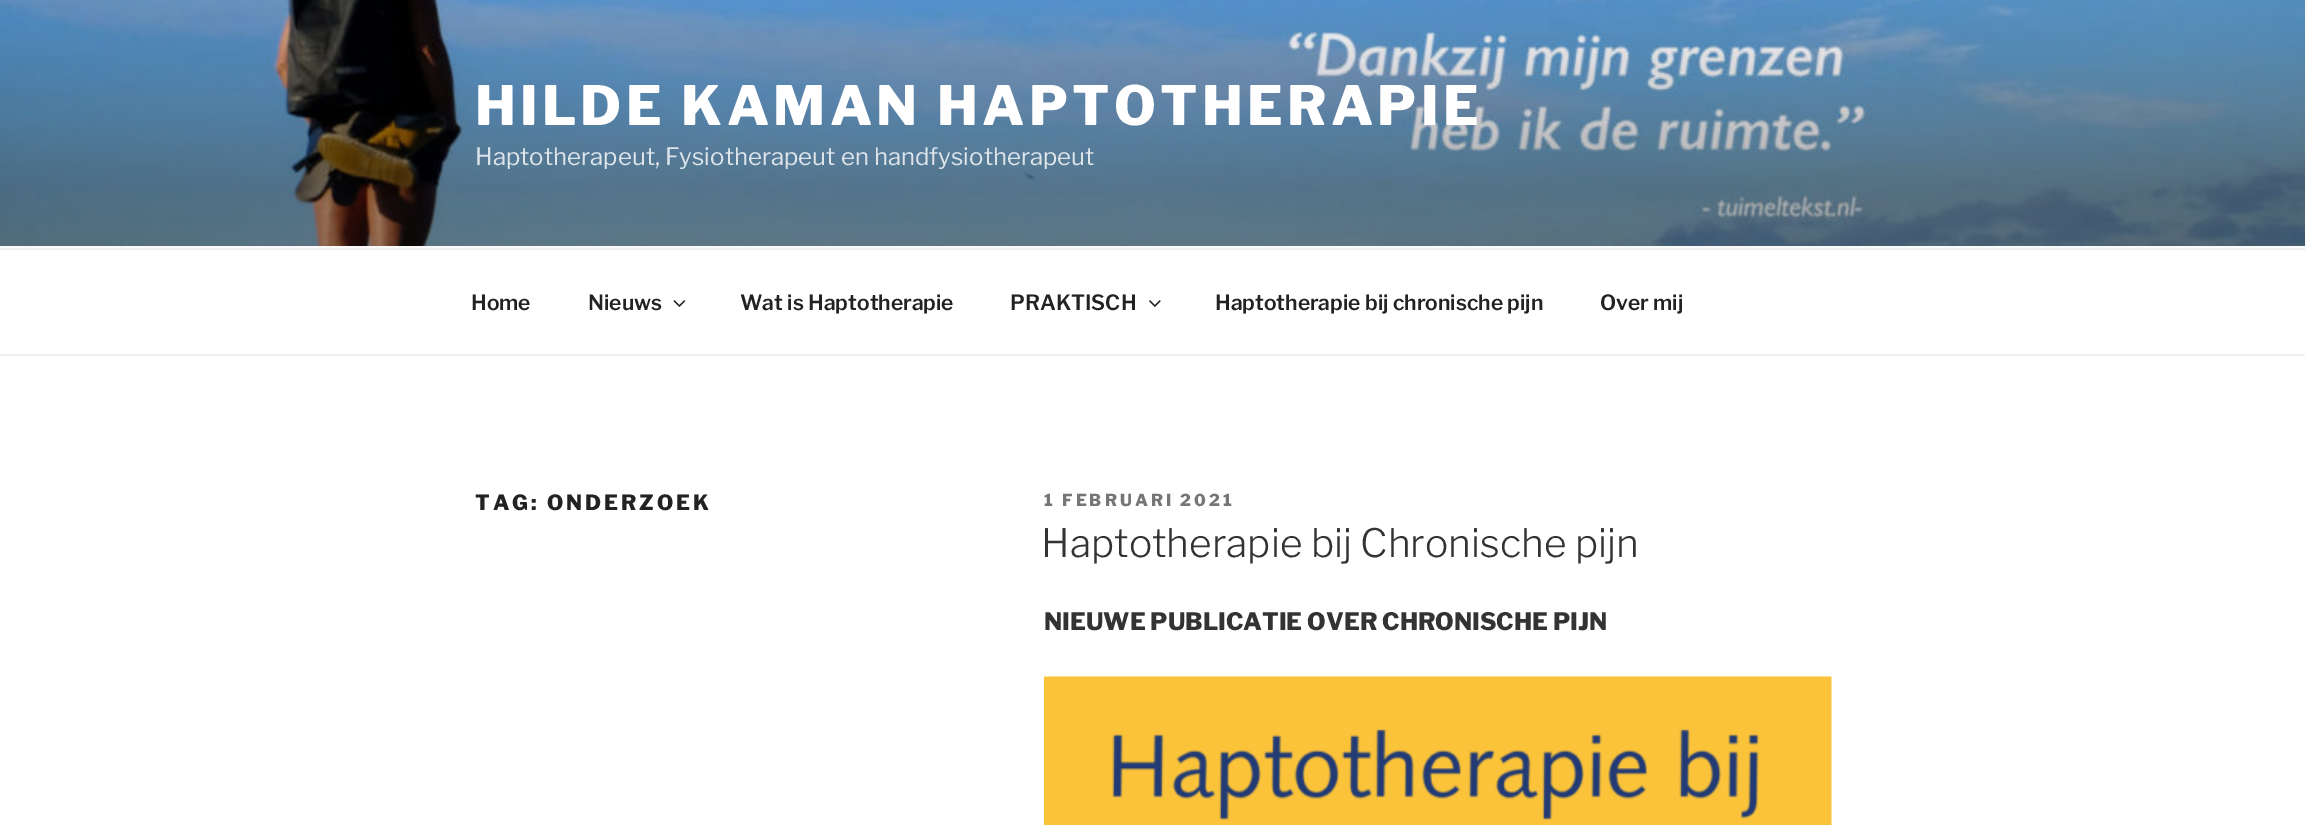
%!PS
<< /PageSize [2305 825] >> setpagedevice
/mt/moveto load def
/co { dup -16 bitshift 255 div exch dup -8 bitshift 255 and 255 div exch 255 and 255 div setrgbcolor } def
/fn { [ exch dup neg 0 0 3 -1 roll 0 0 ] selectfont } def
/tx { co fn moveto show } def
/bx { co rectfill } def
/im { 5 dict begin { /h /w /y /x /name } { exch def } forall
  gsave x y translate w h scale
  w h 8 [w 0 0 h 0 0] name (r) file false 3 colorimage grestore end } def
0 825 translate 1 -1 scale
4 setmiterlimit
0 0 2305 825 16#FFFFFF bx
0 246 2305 2 16#FAFAFA bx
(media/1.raw) 0 0 2305 246 im
0 248 2305 2 16#EEEEEE bx
0 354 2305 2 16#EEEEEE bx
(media/2.raw) 673 300 13 7 im
(media/3.raw) 1149 300 12 7 im
(media/4.raw) 1044 676 788 149 im
/LibreFranklin-ExtraBold 54 fn
16#FFFFFF co
475 125 mt 4.3 0 (HILDE KAMAN HAPTOTHERAPIE) ashow
(Haptotherapeut, Fysiotherapeut en handfysiotherapeut) 475 165 /LibreFranklin-Regular 24 16#DDE4EA tx
(Home) 471 310 /LibreFranklin-SemiBold 21 16#222222 tx
(Nieuws) 588 310 /LibreFranklin-SemiBold 21 16#222222 tx
(Wat is Haptotherapie) 740 310 /LibreFranklin-SemiBold 21 16#222222 tx
(PRAKTISCH) 1010 310 /LibreFranklin-SemiBold 21 16#222222 tx
(Haptotherapie bij chronische pijn) 1215 310 /LibreFranklin-SemiBold 21 16#222222 tx
(Over mij) 1600 310 /LibreFranklin-SemiBold 21 16#222222 tx
/LibreFranklin-ExtraBold 21 fn
475 510 mt 3 0 (TAG: ONDERZOEK) ashow
/LibreFranklin-ExtraBold 16.5 fn
16#767676 co
1044 506 mt 3 0 (1 FEBRUARI 2021) ashow
(Haptotherapie bij Chronische pijn) 1041 557 /LibreFranklin-Light 39 16#333333 tx
(NIEUWE PUBLICATIE OVER CHRONISCHE PIJN) 1044 630 /LibreFranklin-ExtraBold 24 16#333333 tx
showpage
